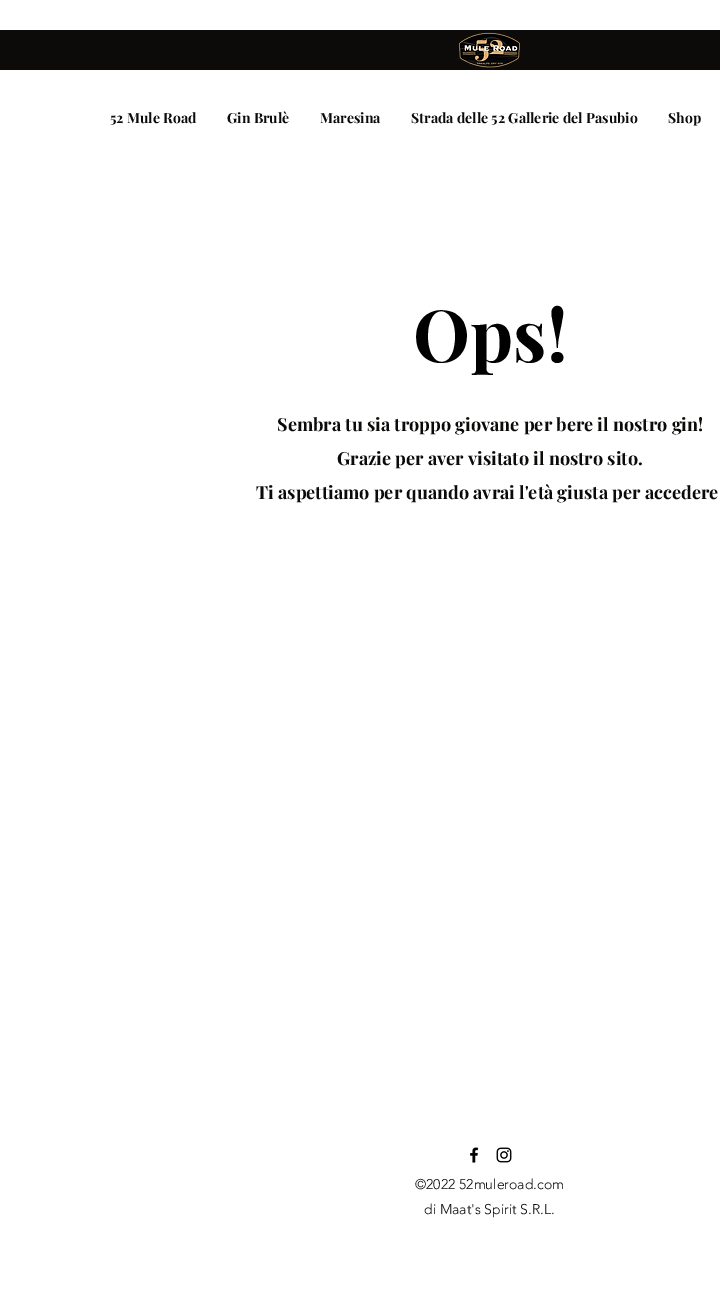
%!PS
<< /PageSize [720 1296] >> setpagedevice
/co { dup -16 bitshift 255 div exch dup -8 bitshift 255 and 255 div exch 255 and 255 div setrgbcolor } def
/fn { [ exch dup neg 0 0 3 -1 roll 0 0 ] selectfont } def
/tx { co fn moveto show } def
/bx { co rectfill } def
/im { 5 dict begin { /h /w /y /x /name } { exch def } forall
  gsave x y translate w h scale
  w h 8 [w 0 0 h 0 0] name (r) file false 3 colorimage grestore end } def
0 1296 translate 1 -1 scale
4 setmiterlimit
0 0 720 1296 16#FFFFFF bx
0 30 720 40 16#0C0B0A bx
(media/1.raw) 458 32 63 36 im
(media/2.raw) 470 1147 9 16 im
(media/3.raw) 496 1147 16 16 im
(52 Mule Road) 110 123 /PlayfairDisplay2-Bold 14 16#0C0B0A tx
(Gin Brulè) 227 123 /PlayfairDisplay2-Bold 14 16#0C0B0A tx
(Maresina) 320 123 /PlayfairDisplay2-Bold 14 16#0C0B0A tx
(Strada delle 52 Gallerie del Pasubio) 411 123 /PlayfairDisplay2-Bold 14 16#0C0B0A tx
(Shop) 668 123 /PlayfairDisplay2-Bold 14 16#0C0B0A tx
(Ops!) 413 362 /PlayfairDisplay-Bold 72 16#000000 tx
(Sembra tu sia troppo giovane per bere il nostro gin!) 277 431 /PlayfairDisplay-Bold 18 16#0C0B0A tx
(Grazie per aver visitato il nostro sito.) 337 465 /PlayfairDisplay-Bold 18 16#0C0B0A tx
(Ti aspettiamo per quando avrai l'età giusta per accedere) 256 499 /PlayfairDisplay-Bold 18 16#0C0B0A tx
(©2022 52muleroad.com) 415 1189 /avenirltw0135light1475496-Light 14 16#0C0B0A tx
(di Maat's Spirit S.R.L.) 424 1214 /avenirltw0135light1475496-Light 14 16#0C0B0A tx
showpage
